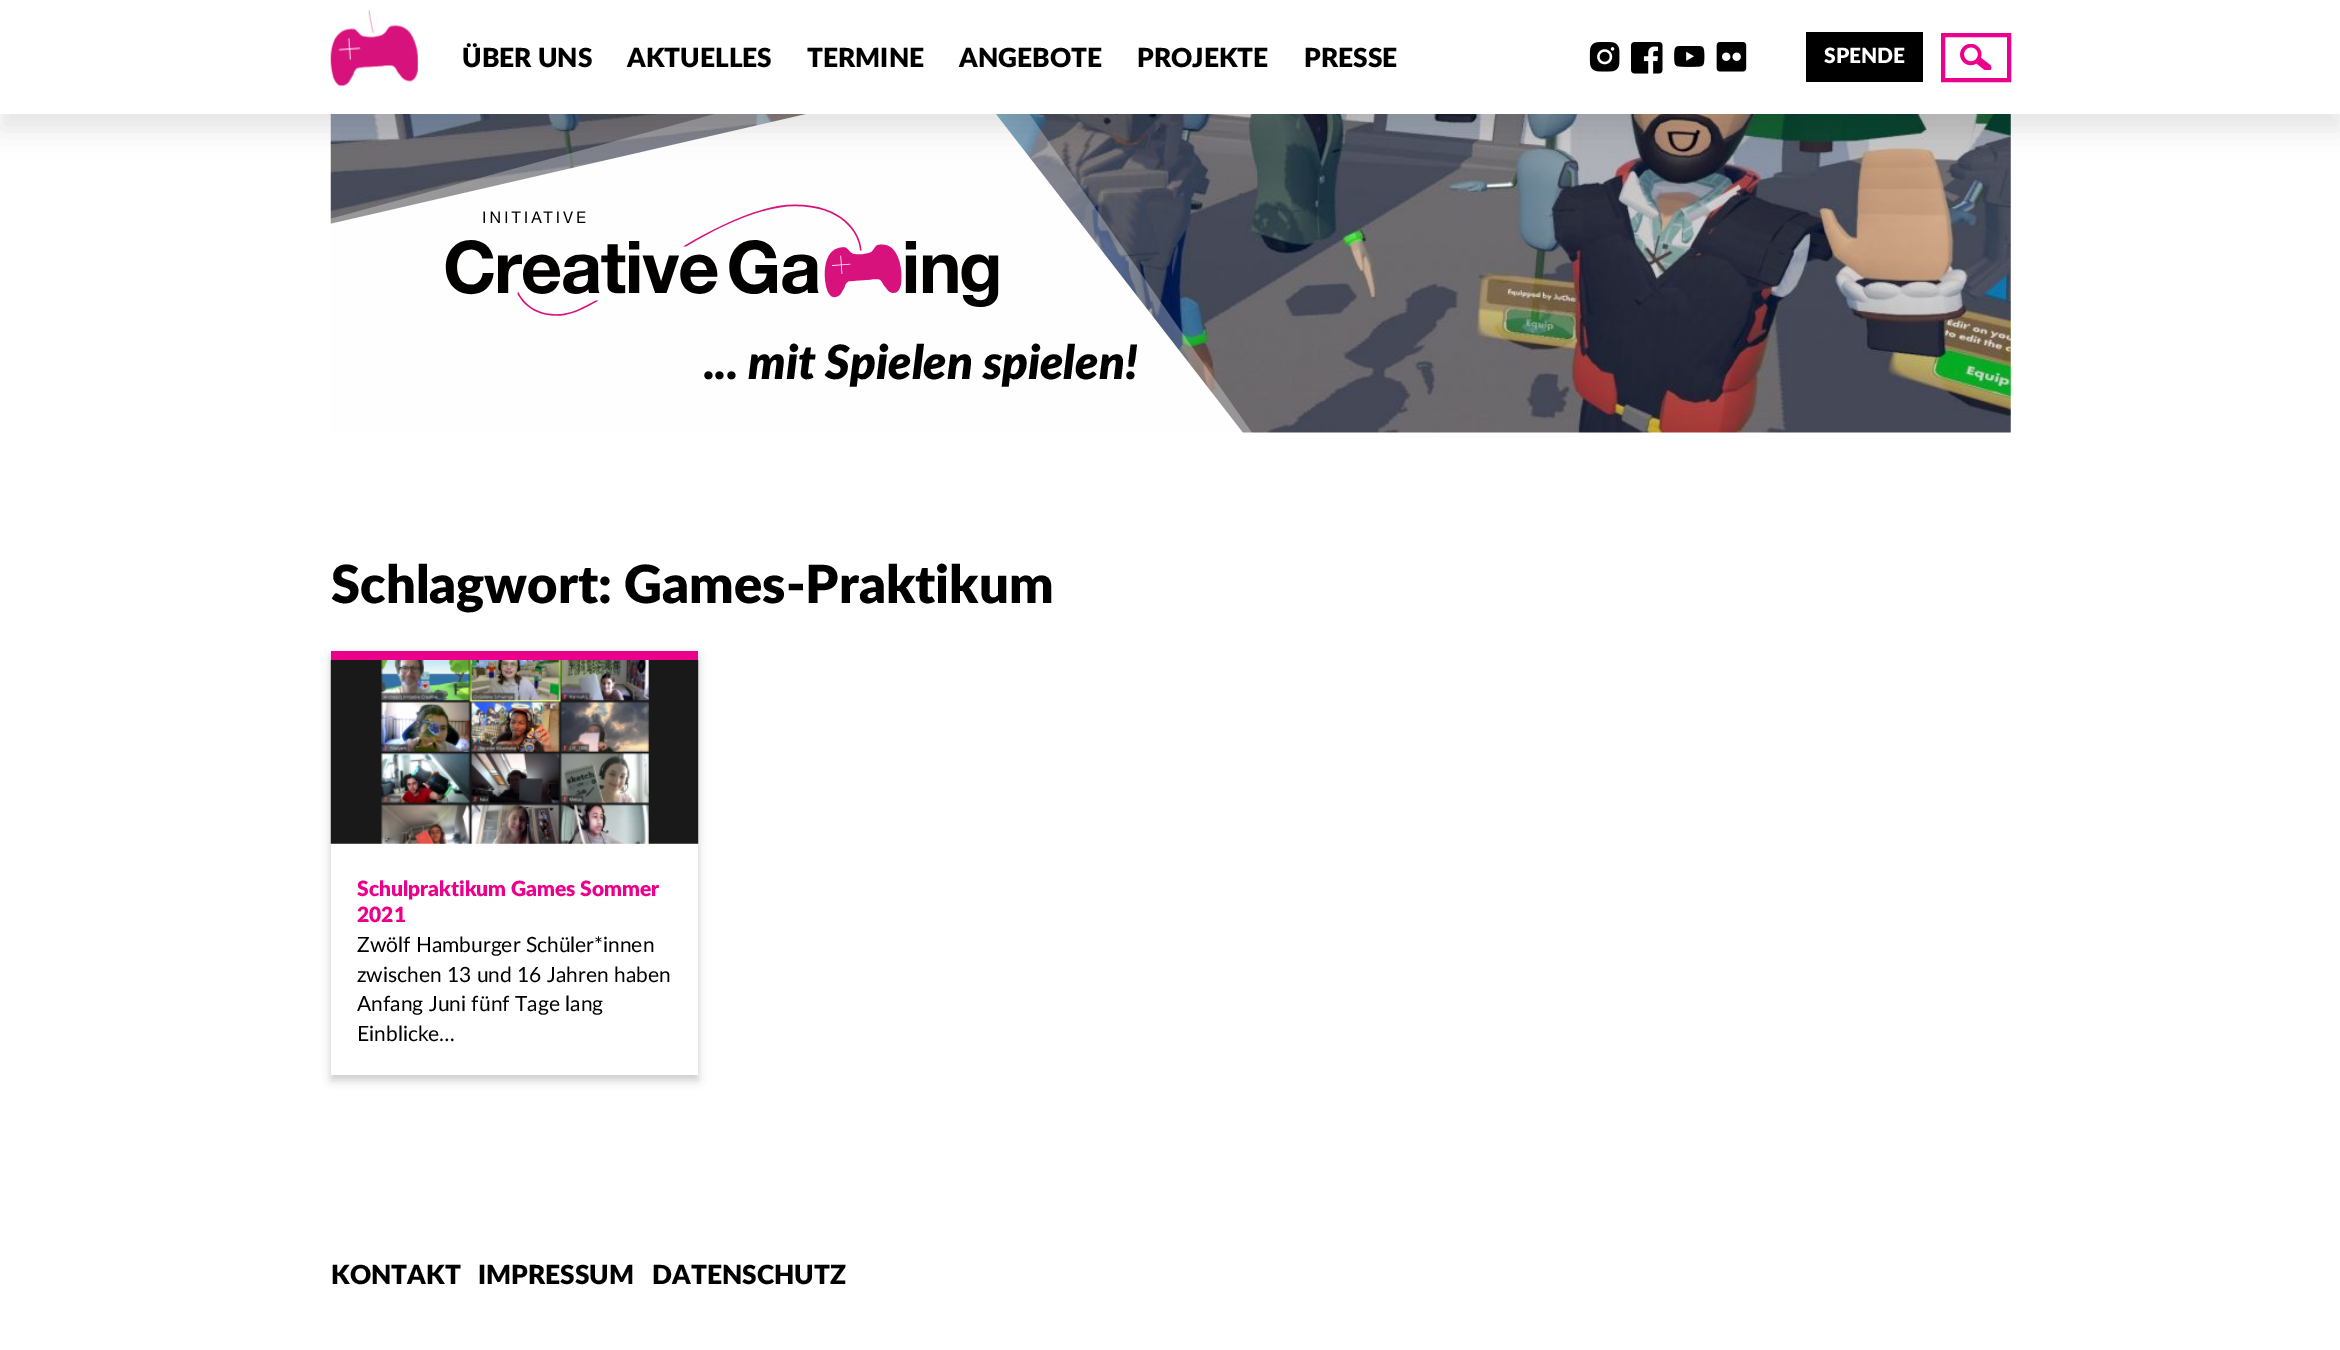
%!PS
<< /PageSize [2340 1350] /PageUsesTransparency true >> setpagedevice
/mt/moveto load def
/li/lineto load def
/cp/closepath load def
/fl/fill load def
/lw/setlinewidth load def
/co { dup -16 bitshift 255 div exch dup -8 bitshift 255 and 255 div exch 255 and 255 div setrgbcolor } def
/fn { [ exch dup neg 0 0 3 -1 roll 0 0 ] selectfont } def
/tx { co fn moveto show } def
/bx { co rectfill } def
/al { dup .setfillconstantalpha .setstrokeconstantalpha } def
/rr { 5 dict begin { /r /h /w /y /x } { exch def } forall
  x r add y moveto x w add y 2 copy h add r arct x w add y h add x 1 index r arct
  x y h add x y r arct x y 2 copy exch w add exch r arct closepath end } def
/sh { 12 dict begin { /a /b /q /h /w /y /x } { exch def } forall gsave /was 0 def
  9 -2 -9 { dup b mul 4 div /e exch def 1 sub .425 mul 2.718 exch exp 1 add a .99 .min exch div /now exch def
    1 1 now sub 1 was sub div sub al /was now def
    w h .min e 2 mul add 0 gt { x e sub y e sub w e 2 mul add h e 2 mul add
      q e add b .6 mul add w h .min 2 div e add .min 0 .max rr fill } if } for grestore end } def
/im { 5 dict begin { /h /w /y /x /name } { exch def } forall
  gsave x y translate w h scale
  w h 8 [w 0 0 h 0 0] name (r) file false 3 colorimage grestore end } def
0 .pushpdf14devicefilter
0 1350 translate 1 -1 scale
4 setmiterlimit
0 0 2340 1350 16#FFFFFF bx
(media/7.raw) 330 114 1681 319 im
0.3 al
16#FCFEFF co
330 219 mt 330 433 li 1252 433 li 979 42 li cp fl
1 al
16#FEFEFE co
330 224 mt 330 433 li 1243 433 li 967 77 li cp fl
16#000000 co
0 16 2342 114 0 13 .1 sh
0 0 2340 114 16#FFFFFF bx
(media/1.raw) 330 10 89 76 im
(media/2.raw) 1589 42 31 30 im
(media/3.raw) 1631 42 32 32 im
(media/4.raw) 1674 46 31 21 im
(media/5.raw) 1716 42 31 30 im
1806 32 117 50 16#000000 bx
(media/6.raw) 1960 44 32 26 im
16#EC008B co
4 lw
1943 35 66 45 rectstroke
(media/8.raw) 445 204 554 112 im
16#000000 co
331 656 367 424 0 4.5 .2 sh
331 843 367 232 16#FFFFFF bx
331 651 367 9 16#EC008B bx
(media/9.raw) 330 660 369 184 im
(ÜBER UNS) 462 67 /Lato-Black 26.25 16#000000 tx
(AKTUELLES) 627 67 /Lato-Black 26.25 16#000000 tx
(TERMINE) 807 67 /Lato-Black 26.25 16#000000 tx
(ANGEBOTE) 959 67 /Lato-Black 26.25 16#000000 tx
(PROJEKTE) 1137 67 /Lato-Black 26.25 16#000000 tx
(PRESSE) 1304 67 /Lato-Black 26.25 16#000000 tx
(SPENDE) 1824 63 /Lato-Black 21 16#FFFFFF tx
(... mit Spielen spielen!) 704 379 /Lato-BlackItalic 47.25 16#000000 tx
(Schlagwort: Games-Praktikum) 331 603 /Lato-Black 52.5 16#000000 tx
(Schulpraktikum Games Sommer) 357 896 /Lato-Black 21 16#EC008B tx
(2021) 357 922 /Lato-Black 21 16#EC008B tx
(Zwölf Hamburger Schüler*innen) 357 952 /Lato-Regular 21 16#000000 tx
(zwischen 13 und 16 Jahren haben) 357 982 /Lato-Regular 21 16#000000 tx
(Anfang Juni fünf Tage lang) 357 1011 /Lato-Regular 21 16#000000 tx
(Einblicke…) 357 1041 /Lato-Regular 21 16#000000 tx
(KONTAKT) 331 1284 /Lato-Black 26.25 16#000000 tx
(IMPRESSUM) 478 1284 /Lato-Black 26.25 16#000000 tx
(DATENSCHUTZ) 652 1284 /Lato-Black 26.25 16#000000 tx
.poppdf14devicefilter showpage
